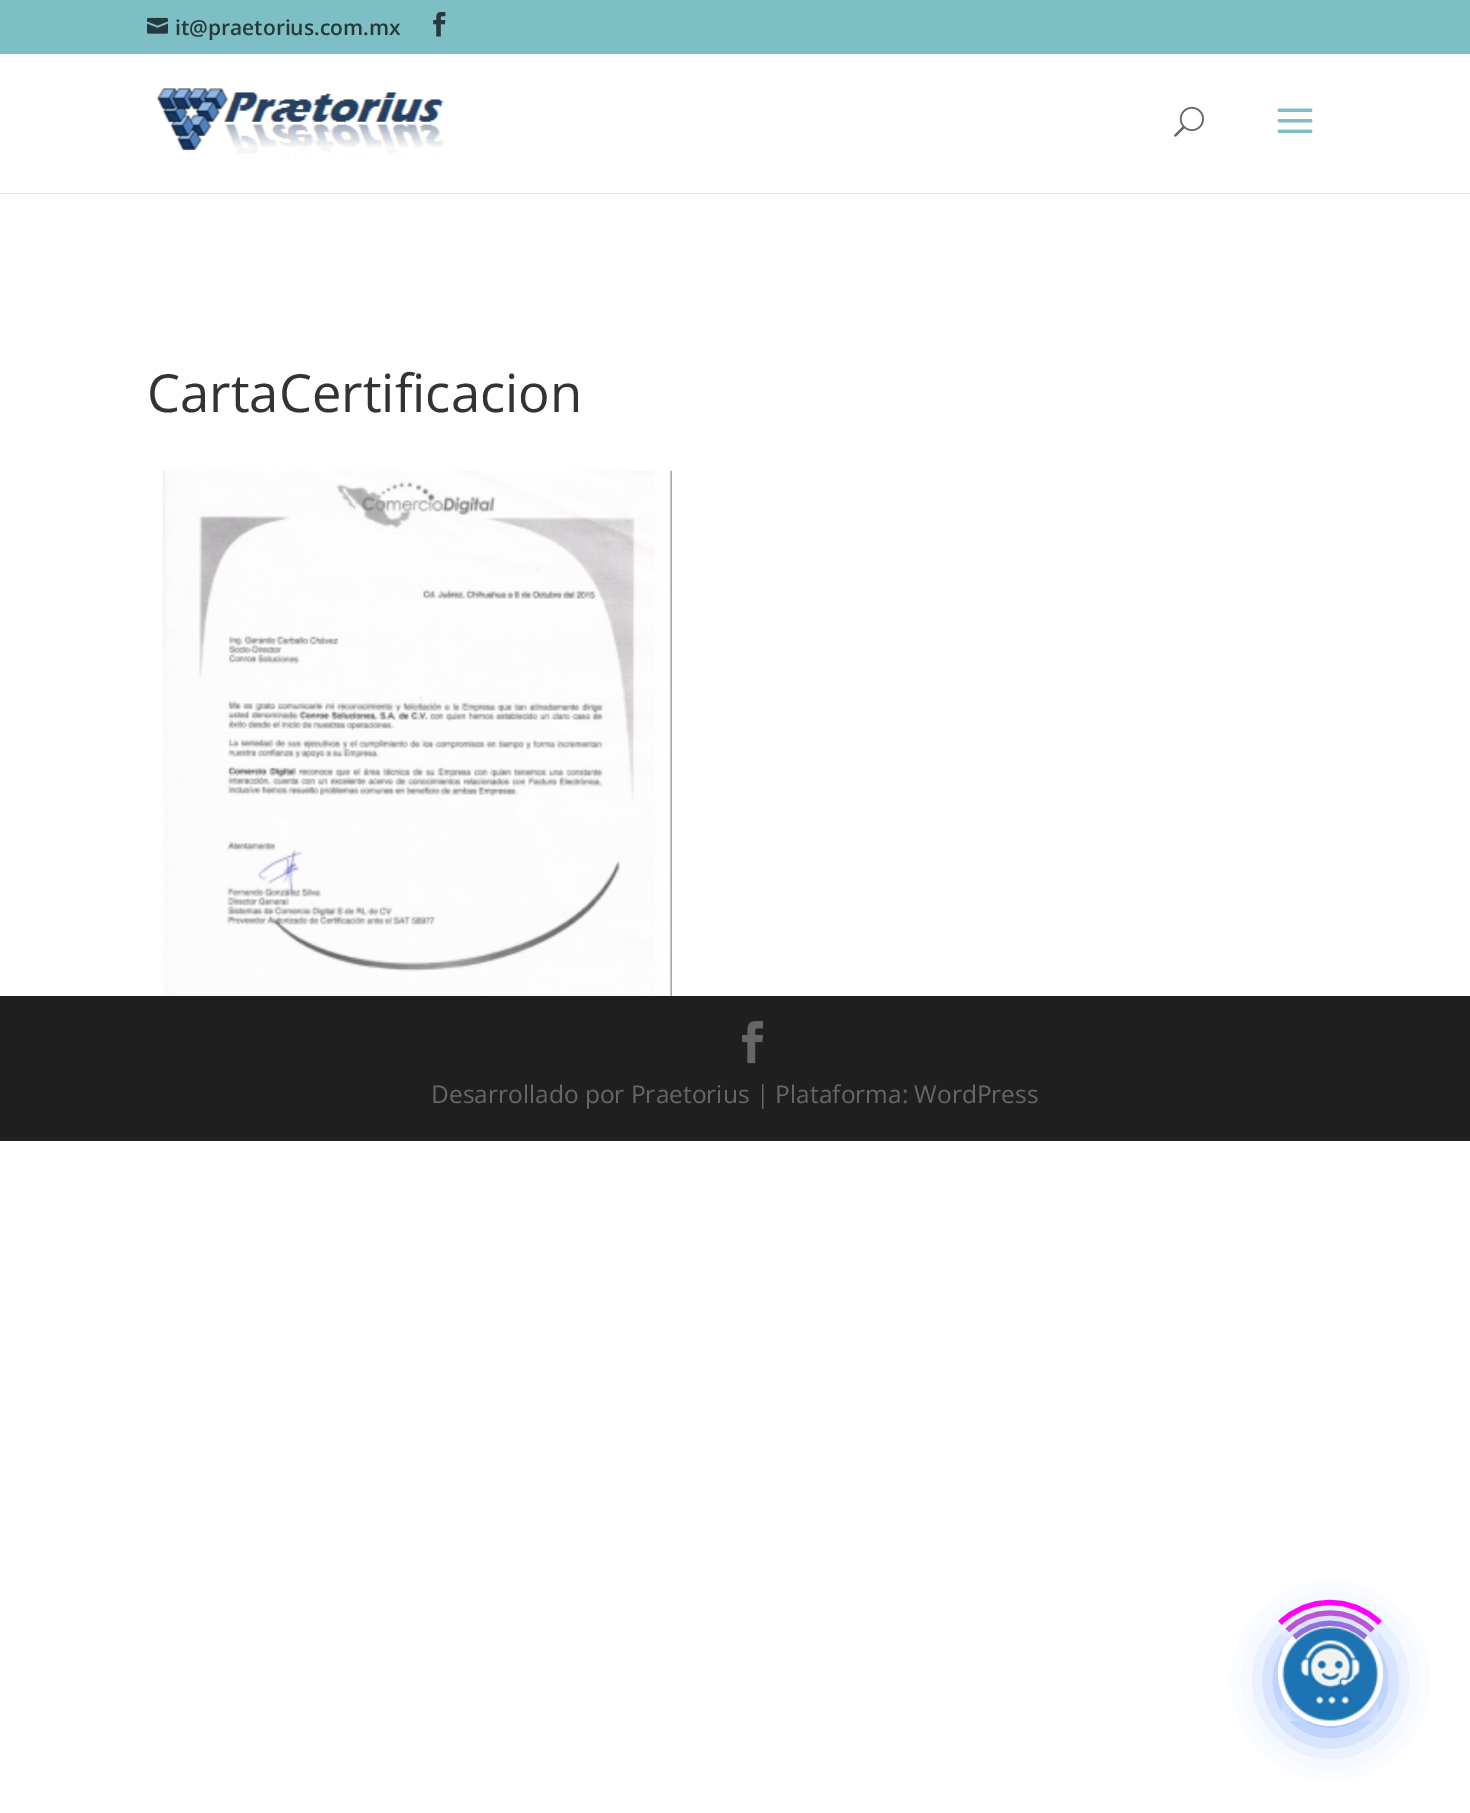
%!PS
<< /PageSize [1470 1813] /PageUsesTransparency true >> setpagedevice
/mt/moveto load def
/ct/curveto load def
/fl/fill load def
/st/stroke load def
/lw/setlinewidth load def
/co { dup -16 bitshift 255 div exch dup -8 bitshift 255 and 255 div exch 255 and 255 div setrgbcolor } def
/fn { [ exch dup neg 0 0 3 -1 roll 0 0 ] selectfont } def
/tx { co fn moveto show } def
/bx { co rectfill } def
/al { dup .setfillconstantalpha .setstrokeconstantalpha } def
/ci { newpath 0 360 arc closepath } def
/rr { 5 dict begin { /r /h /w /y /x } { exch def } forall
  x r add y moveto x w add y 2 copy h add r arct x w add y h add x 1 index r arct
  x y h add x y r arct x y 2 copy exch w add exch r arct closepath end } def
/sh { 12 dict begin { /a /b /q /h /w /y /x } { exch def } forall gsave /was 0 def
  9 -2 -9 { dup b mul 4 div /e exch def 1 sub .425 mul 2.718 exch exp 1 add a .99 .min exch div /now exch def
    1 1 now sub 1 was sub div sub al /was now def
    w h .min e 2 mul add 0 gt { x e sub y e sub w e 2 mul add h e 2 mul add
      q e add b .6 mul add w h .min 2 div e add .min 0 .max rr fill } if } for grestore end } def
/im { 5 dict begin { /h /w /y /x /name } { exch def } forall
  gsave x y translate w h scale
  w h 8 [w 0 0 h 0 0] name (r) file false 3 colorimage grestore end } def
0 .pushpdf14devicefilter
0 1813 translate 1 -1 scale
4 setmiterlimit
0 0 1470 1813 16#FFFFFF bx
0 0 1470 54 16#7EBEC5 bx
(media/1.raw) 147 17 21 17 im
(media/2.raw) 433 12 13 25 im
0 193 1470 1 16#E6E6E6 bx
(media/3.raw) 156 87 296 71 im
(media/4.raw) 1174 106 30 31 im
(media/5.raw) 1277 108 36 25 im
(media/6.raw) 162 470 510 526 im
0 996 1470 145 16#1F1F1F bx
(media/7.raw) 742 1021 21 43 im
16#004DFF co
1278 1628 105 105 52.5 21 .5 sh
16#FFFFFF co
1330.5 1673.5 52.5 ci fl
(media/8.raw) 1282 1626 96 95 im
16#9370DB co
5.2 lw
1294.5 1637.5 mt 1314 1618.5 1346 1618.5 1365.5 1637.5 ct st
16#BA55D3 co
1287.5 1630.5 mt 1310.5 1607 1349.5 1607 1372.5 1630.5 ct st
16#FF00FF co
1280 1623 mt 1307.5 1595.5 1352.5 1595.5 1380 1623 ct st
(it@praetorius.com.mx) 175 35 /OpenSans-SemiBold 21 16#26393B tx
(CartaCertificacion) 147 412 /OpenSans-Regular 52.5 16#333333 tx
(Desarrollado por Praetorius | Plataforma: WordPress) 431 1103 /OpenSans-Regular 24.5 16#666666 tx
.poppdf14devicefilter showpage
